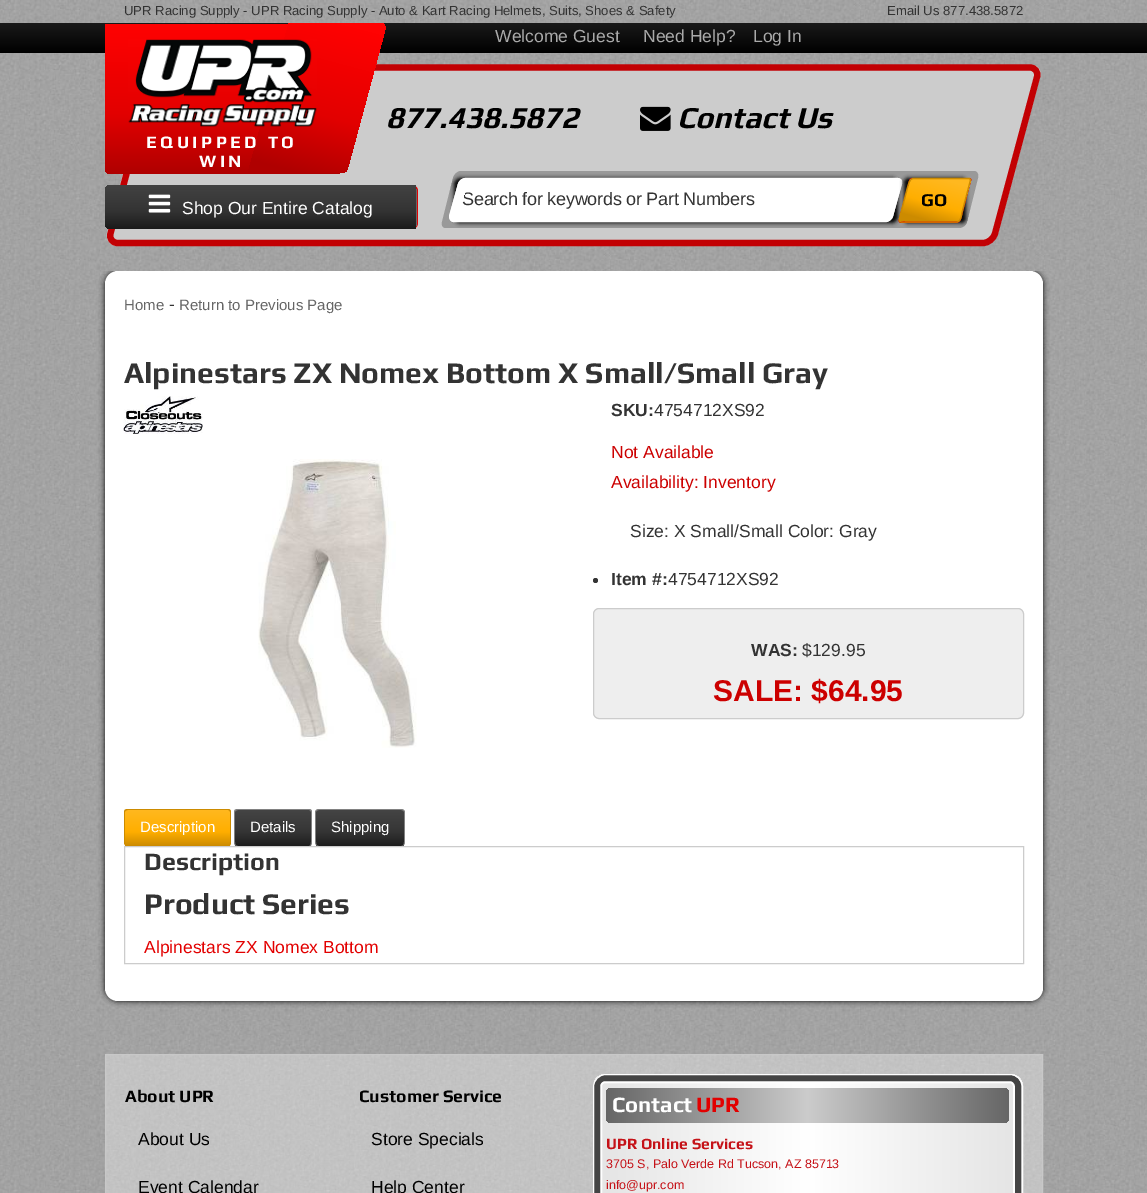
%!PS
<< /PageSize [1147 1193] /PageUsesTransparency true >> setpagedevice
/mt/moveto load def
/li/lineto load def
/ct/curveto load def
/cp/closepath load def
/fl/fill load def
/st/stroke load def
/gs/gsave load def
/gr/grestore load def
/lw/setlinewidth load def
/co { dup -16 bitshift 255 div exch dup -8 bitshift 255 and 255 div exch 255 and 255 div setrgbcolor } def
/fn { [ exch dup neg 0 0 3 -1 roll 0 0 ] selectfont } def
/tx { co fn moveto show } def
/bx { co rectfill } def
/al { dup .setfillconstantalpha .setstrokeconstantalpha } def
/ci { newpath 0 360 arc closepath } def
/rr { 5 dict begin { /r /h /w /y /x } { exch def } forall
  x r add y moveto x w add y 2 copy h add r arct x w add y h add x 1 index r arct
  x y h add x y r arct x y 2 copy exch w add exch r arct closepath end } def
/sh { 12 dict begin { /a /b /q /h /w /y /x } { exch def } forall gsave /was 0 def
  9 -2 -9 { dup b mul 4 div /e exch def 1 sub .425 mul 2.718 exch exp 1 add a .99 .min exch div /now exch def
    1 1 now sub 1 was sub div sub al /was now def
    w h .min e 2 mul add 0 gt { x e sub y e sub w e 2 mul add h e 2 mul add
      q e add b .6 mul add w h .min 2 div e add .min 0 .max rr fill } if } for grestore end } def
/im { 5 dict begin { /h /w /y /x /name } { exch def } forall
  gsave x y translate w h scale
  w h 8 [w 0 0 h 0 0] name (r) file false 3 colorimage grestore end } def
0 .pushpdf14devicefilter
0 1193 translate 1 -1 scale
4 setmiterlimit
0 0 1147 1193 16#FFFFFF bx
(media/1.raw) 0 0 1147 1193 im
gs 0 23 mt 1147 23 li 1147 53 li 0 53 li cp clip newpath
<< /ShadingType 2 /ColorSpace /DeviceRGB /Coords [574 22 574 53] /Extend [true true] /Function << /FunctionType 2 /Domain [0 1] /C0 [.106 .106 .106] /C1 [0 0 0] /N 1 >> >> shfill gr
16#CCCCCC co
165 65 mt 1031 65 li 1038 65 1042 70 1040 77 ct 998 233 li 996 240 989 246 982 246 ct 117 246 li 110 246 106 240 107 233 ct 149 77 li 151 70 158 65 165 65 ct cp fl
16#C20003 co
6.2 lw
164.5 67.5 mt 1030 67.5 li 1035 67.5 1038.5 72 1037 77 ct 995 233.5 li 993.5 238.5 988.5 243 983 243 ct 117.5 243 li 112.5 243 109 238.5 110.5 233.5 ct 152.5 77 li 154 72 159 67.5 164.5 67.5 ct cp st
(media/2.raw) 640 106 31 25 im
gs 105 24 mt 340 24 li 340 174 li 111 174 li 107.5 174 105 171.5 105 168 ct cp clip newpath
<< /ShadingType 2 /ColorSpace /DeviceRGB /Coords [223 24 223 174] /Extend [true true] /Function << /FunctionType 3 /Domain [0 1] /Functions [<< /FunctionType 2 /Domain [0 1] /C0 [1 .008 .008] /C1 [.886 0 0] /N 1 >> << /FunctionType 2 /Domain [0 1] /C0 [.886 0 0] /C1 [.686 0 0] /N 1 >>] /Bounds [.6] /Encode [0 1 0 1] >> >> shfill gr
gs 289 23 mt 381 23 li 384 23 386 26 385 30 ct 348 167 li 348 171 344 173 341 173 ct 248 173 li cp clip newpath
<< /ShadingType 2 /ColorSpace /DeviceRGB /Coords [338 23 298 173] /Extend [true true] /Function << /FunctionType 3 /Domain [0 1] /Functions [<< /FunctionType 2 /Domain [0 1] /C0 [1 .008 .008] /C1 [.886 0 0] /N 1 >> << /FunctionType 2 /Domain [0 1] /C0 [.886 0 0] /C1 [.686 0 0] /N 1 >>] /Bounds [.6] /Encode [0 1 0 1] >> >> shfill gr
(media/3.raw) 128 39 189 88 im
16#E20000 co
105 185 313 44 6 rr fl
gs
105 185 313 44 6 rr clip newpath
gs 111 185 mt 416 185 li 416 229 li 111 229 li 107.5 229 105 226.5 105 223 ct 105 191 li 105 187.5 107.5 185 111 185 ct cp clip newpath
<< /ShadingType 2 /ColorSpace /DeviceRGB /Coords [261 185 261 229] /Extend [true true] /Function << /FunctionType 3 /Domain [0 1] /Functions [<< /FunctionType 2 /Domain [0 1] /C0 [.259 .259 .259] /C1 [.2 .2 .2] /N 1 >> << /FunctionType 2 /Domain [0 1] /C0 [.2 .2 .2] /C1 [.102 .102 .102] /N 1 >>] /Bounds [.6] /Encode [0 1 0 1] >> >> shfill gr
gr
416 189 1 37 16#666666 bx
(media/4.raw) 148 194 23 19 im
16#999999 co
461 171 mt 974 171 li 977 171 979 174 978 178 ct 967 222 li 966 226 962 228 959 228 ct 446 228 li 443 228 441 226 442 222 ct 453 178 li 454 174 458 171 461 171 ct cp fl
gs
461.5 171.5 mt 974 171.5 li 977.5 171.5 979.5 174 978.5 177.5 ct 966.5 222 li 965.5 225.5 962 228.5 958.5 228.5 ct 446 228.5 li 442.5 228.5 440.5 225.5 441.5 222 ct 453.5 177.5 li 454.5 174 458 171.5 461.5 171.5 ct cp clip newpath
16#000000 co
454 178 444 45 6 2 1 sh
gr
16#FFFFFF co
466 178 mt 897 178 li 901 178 903 180 902 184 ct 893 216 li 892 219 889 222 885 222 ct 454 222 li 451 222 449 219 449 216 ct 458 184 li 459 180 463 178 466 178 ct cp fl
1.2 lw
466 178.5 mt 897 178.5 li 900 178.5 902 181 901 184 ct 892.5 216 li 892 219 888.5 221.5 885.5 221.5 ct 454 221.5 li 451 221.5 449.5 219 450 216 ct 458.5 184 li 459.5 181 462.5 178.5 466 178.5 ct cp st
gs
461.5 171.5 mt 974 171.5 li 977.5 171.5 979.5 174 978.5 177.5 ct 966.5 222 li 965.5 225.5 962 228.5 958.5 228.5 ct 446 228.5 li 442.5 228.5 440.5 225.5 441.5 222 ct 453.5 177.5 li 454.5 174 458 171.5 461.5 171.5 ct cp clip newpath
16#000000 co
904 178 62 45 4 2 1 sh
gr
16#E20000 co
913 178 mt 968 178 li 971 178 972 179 971 181 ct 961 219 li 961 221 958 223 956 223 ct 901 223 li 899 223 898 221 899 219 ct 909 181 li 909 179 911 178 913 178 ct cp fl
gs 911 179 mt 971 179 li 959 221 li 899 221 li cp clip newpath
<< /ShadingType 2 /ColorSpace /DeviceRGB /Coords [941 179 929 221] /Extend [true true] /Function << /FunctionType 3 /Domain [0 1] /Functions [<< /FunctionType 2 /Domain [0 1] /C0 [1 .722 .122] /C1 [1 .682 0] /N 1 >> << /FunctionType 2 /Domain [0 1] /C0 [1 .682 0] /C1 [.8 .545 0] /N 1 >>] /Bounds [.6] /Encode [0 1 0 1] >> >> shfill gr
16#CC8B00 co
913.5 178.5 mt 969.5 178.5 li 970.5 180 li 962 212.5 li 961.5 215.5 961 222 956.5 222 ct 910.5 222 li 898 222 898 224 901 212.5 ct 907.5 187.5 li 908.5 185 909 178.5 913.5 178.5 ct cp st
gs
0 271 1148 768 rectclip
16#000000 co
105 271 938 730 13 3 1 sh
gr
16#FFFFFF co
105 271 938 730 13 rr fl
(media/5.raw) 123 396 80 38 im
(media/6.raw) 258 459 159 289 im
16#333333 co
595.5 580.5 2.5 ci fl
16#EEEEEE co
593.5 608.5 430 110 5.5 rr gs fl gr
16#CCCCCC co
1 lw
st
gs
124 809 107 37 4 rr clip newpath
gs 125 810 mt 230 810 li 230 846 li 125 846 li cp clip newpath
<< /ShadingType 2 /ColorSpace /DeviceRGB /Coords [178 810 178 846] /Extend [true true] /Function << /FunctionType 3 /Domain [0 1] /Functions [<< /FunctionType 2 /Domain [0 1] /C0 [1 .722 .122] /C1 [1 .682 0] /N 1 >> << /FunctionType 2 /Domain [0 1] /C0 [1 .682 0] /C1 [.8 .545 0] /N 1 >>] /Bounds [.6] /Encode [0 1 0 1] >> >> shfill gr
gr
16#CC8B00 co
128 809 mt 228 809 li 230 809 231 810 231 812 ct 231 842 li 231 845 230 846 228 846 ct 128 846 li 125 846 124 845 124 842 ct 124 812 li 124 810 125 809 128 809 ct cp 128 810 mt 228 810 li 229 810 230 811 230 812 ct 230 842 li 230 845 229 846 228 846 ct 128 846 li 126 846 125 845 125 842 ct 125 812 li 125 811 126 810 128 810 ct cp eofill
gs
234 809 79 37 4 rr clip newpath
gs 235 810 mt 311 810 li 311 846 li 235 846 li cp clip newpath
<< /ShadingType 2 /ColorSpace /DeviceRGB /Coords [273 810 273 846] /Extend [true true] /Function << /FunctionType 3 /Domain [0 1] /Functions [<< /FunctionType 2 /Domain [0 1] /C0 [.267 .267 .267] /C1 [.208 .208 .208] /N 1 >> << /FunctionType 2 /Domain [0 1] /C0 [.208 .208 .208] /C1 [.11 .11 .11] /N 1 >>] /Bounds [.6] /Encode [0 1 0 1] >> >> shfill gr
gr
16#818181 co
238 809 mt 309 809 li 311 809 312 810 312 812 ct 312 842 li 312 845 311 846 309 846 ct 238 846 li 235 846 234 845 234 842 ct 234 812 li 234 810 235 809 238 809 ct cp 238 810 mt 309 810 li 310 810 311 811 311 812 ct 311 842 li 311 845 310 846 309 846 ct 238 846 li 236 846 235 845 235 842 ct 235 812 li 235 811 236 810 238 810 ct cp eofill
gs
315 809 90 37 4 rr clip newpath
gs 316 810 mt 404 810 li 404 846 li 316 846 li cp clip newpath
<< /ShadingType 2 /ColorSpace /DeviceRGB /Coords [360 810 360 846] /Extend [true true] /Function << /FunctionType 3 /Domain [0 1] /Functions [<< /FunctionType 2 /Domain [0 1] /C0 [.267 .267 .267] /C1 [.208 .208 .208] /N 1 >> << /FunctionType 2 /Domain [0 1] /C0 [.208 .208 .208] /C1 [.11 .11 .11] /N 1 >>] /Bounds [.6] /Encode [0 1 0 1] >> >> shfill gr
gr
319 809 mt 401 809 li 403 809 405 810 405 812 ct 405 842 li 405 845 403 846 401 846 ct 319 846 li 317 846 315 845 315 842 ct 315 812 li 315 810 317 809 319 809 ct cp 319 810 mt 401 810 li 403 810 404 811 404 812 ct 404 842 li 404 845 403 846 401 846 ct 319 846 li 317 846 316 845 316 842 ct 316 812 li 316 811 317 810 319 810 ct cp eofill
16#CCCCCC co
124.5 846.5 899 117 rectstroke
0.35 al
16#FFFFFF co
105.5 1054.5 mt 1042.5 1054.5 li 1042.5 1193.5 li 105.5 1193.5 li cp fl
1 al
16#C8C8C8 co
105.5 1054.5 mt 1042.5 1054.5 li 1042.5 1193.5 li 105.5 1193.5 li cp st
gs
593 1074 430 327 13 rr clip newpath
gs 594 1074 mt 1021 1074 li 1021 1193 li 594 1193 li cp clip newpath
<< /ShadingType 2 /ColorSpace /DeviceRGB /Coords [594 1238 1021 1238] /Extend [true true] /Function << /FunctionType 3 /Domain [0 1] /Functions [<< /FunctionType 2 /Domain [0 1] /C0 [.894 .894 .894] /C1 [1 1 1] /N 1 >> << /FunctionType 2 /Domain [0 1] /C0 [1 1 1] /C1 [.894 .894 .894] /N 1 >>] /Bounds [.5] /Encode [0 1 0 1] >> >> shfill gr
gs 1021 1074 mt 1023 1074 li 1023 1193 li 1021 1193 li cp clip newpath
<< /ShadingType 2 /ColorSpace /DeviceRGB /Coords [1021 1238 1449 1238] /Extend [true true] /Function << /FunctionType 3 /Domain [0 1] /Functions [<< /FunctionType 2 /Domain [0 1] /C0 [.894 .894 .894] /C1 [1 1 1] /N 1 >> << /FunctionType 2 /Domain [0 1] /C0 [1 1 1] /C1 [.894 .894 .894] /N 1 >>] /Bounds [.5] /Encode [0 1 0 1] >> >> shfill gr
gr
16#FFFFFF co
8 lw
598 1079 419 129 7 rr st
16#444444 co
6 lw
597 1078 421 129 8 rr st
16#FFFFFF co
1 lw
593.5 1074.5 429 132 12.5 rr st
gs 606 1088 403 35 6 rr clip newpath
<< /ShadingType 2 /ColorSpace /DeviceRGB /Coords [606 1105 1009 1105] /Extend [true true] /Function << /FunctionType 3 /Domain [0 1] /Functions [<< /FunctionType 2 /Domain [0 1] /C0 [.4 .4 .4] /C1 [.8 .8 .8] /N 1 >> << /FunctionType 2 /Domain [0 1] /C0 [.8 .8 .8] /C1 [.4 .4 .4] /N 1 >>] /Bounds [.5] /Encode [0 1 0 1] >> >> shfill gr
(UPR Racing Supply - UPR Racing Supply - Auto & Kart Racing Helmets, Suits, Shoes & Safety) 124 15 /LiberationSans-Regular 13.1 16#333333 tx
(Email Us 877.438.5872) 887 15 /LiberationSans-Regular 13.1 16#333333 tx
(Welcome Guest) 495 42 /LiberationSans-Regular 17.5 16#AAAAAA tx
(Need Help?) 643 42 /LiberationSans-Regular 17.5 16#AAAAAA tx
(Log In) 753 42 /LiberationSans-Regular 17.5 16#AAAAAA tx
(877.438.5872) 386 128 /Play-BoldItalic 30.5 16#000000 tx
(Contact Us) 677 128 /Play-BoldItalic 30.5 16#000000 tx
/Play-Bold 17.5 fn
16#FFFFFF co
146 148 mt 3.5 0 (EQUIPPED TO) ashow
199 167 mt 3.5 0 (WIN) ashow
(Shop Our Entire Catalog) 182 214 /LiberationSans-Regular 17.5 16#FFFFFF tx
gs
467 187.5 mt 891 187.5 li 884 212 li 460.5 212 li cp clip newpath
/LiberationSans-Regular 18.1 fn
16#333333 co
462 205 mt -.3 0 (Search for keywords or Part Numbers) ashow
gr
(GO) 921 206 /Play-Bold 18.1 16#000000 tx
(Home) 124 310 /LiberationSans-Regular 15 16#666666 tx
(-) 169 310 /LiberationSans-Regular 17.5 16#333333 tx
(Return to Previous Page) 179 310 /LiberationSans-Regular 15 16#666666 tx
(Alpinestars ZX Nomex Bottom X Small/Small Gray) 124 383 /Play-Bold 30 16#333333 tx
(SKU:) 611 416 /LiberationSans-Bold 17.5 16#333333 tx
(4754712XS92) 654 416 /LiberationSans-Regular 17.5 16#333333 tx
(Not Available) 611 458 /LiberationSans-Regular 17.5 16#CC0000 tx
(Availability: Inventory) 611 488 /LiberationSans-Regular 17.5 16#CC0000 tx
(Size: X Small/Small Color: Gray) 630 537 /LiberationSans-Regular 17.5 16#333333 tx
(Item #:) 611 585 /LiberationSans-Bold 17.5 16#333333 tx
(4754712XS92) 668 585 /LiberationSans-Regular 17.5 16#333333 tx
(WAS:) 751 656 /LiberationSans-Bold 17.5 16#333333 tx
($129.95) 802 656 /LiberationSans-Regular 17.5 16#333333 tx
(SALE: $64.95) 713 701 /LiberationSans-Bold 30 16#CC0000 tx
(Description) 140 832 /LiberationSans-Regular 15 16#FFFFFF tx
(Details) 250 832 /LiberationSans-Regular 15 16#FFFFFF tx
(Shipping) 331 832 /LiberationSans-Regular 15 16#FFFFFF tx
(Description) 144 870 /Play-Bold 25 16#333333 tx
(Product Series) 144 914 /Play-Bold 30 16#333333 tx
(Alpinestars ZX Nomex Bottom) 144 953 /LiberationSans-Regular 17.5 16#E20000 tx
(About UPR) 125 1102 /Play-Bold 17.5 16#000000 tx
(About Us) 138 1145 /LiberationSans-Regular 17.5 16#000000 tx
(Event Calendar) 138 1193 /LiberationSans-Regular 17.5 16#000000 tx
(Customer Service) 359 1102 /Play-Bold 17.5 16#000000 tx
(Store Specials) 371 1145 /LiberationSans-Regular 17.5 16#000000 tx
(Help Center) 371 1193 /LiberationSans-Regular 17.5 16#000000 tx
(Contact) 612 1112 /Play-Bold 22 16#FFFFFF tx
(UPR) 696 1112 /Play-Bold 22 16#E20000 tx
(UPR Online Services) 606 1149 /Play-Bold 15.6 16#C51218 tx
(3705 S, Palo Verde Rd Tucson, AZ 85713) 606 1168 /LiberationSans-Regular 12.5 16#C51218 tx
(info@upr.com) 606 1189 /LiberationSans-Regular 12.5 16#C51218 tx
.poppdf14devicefilter showpage
